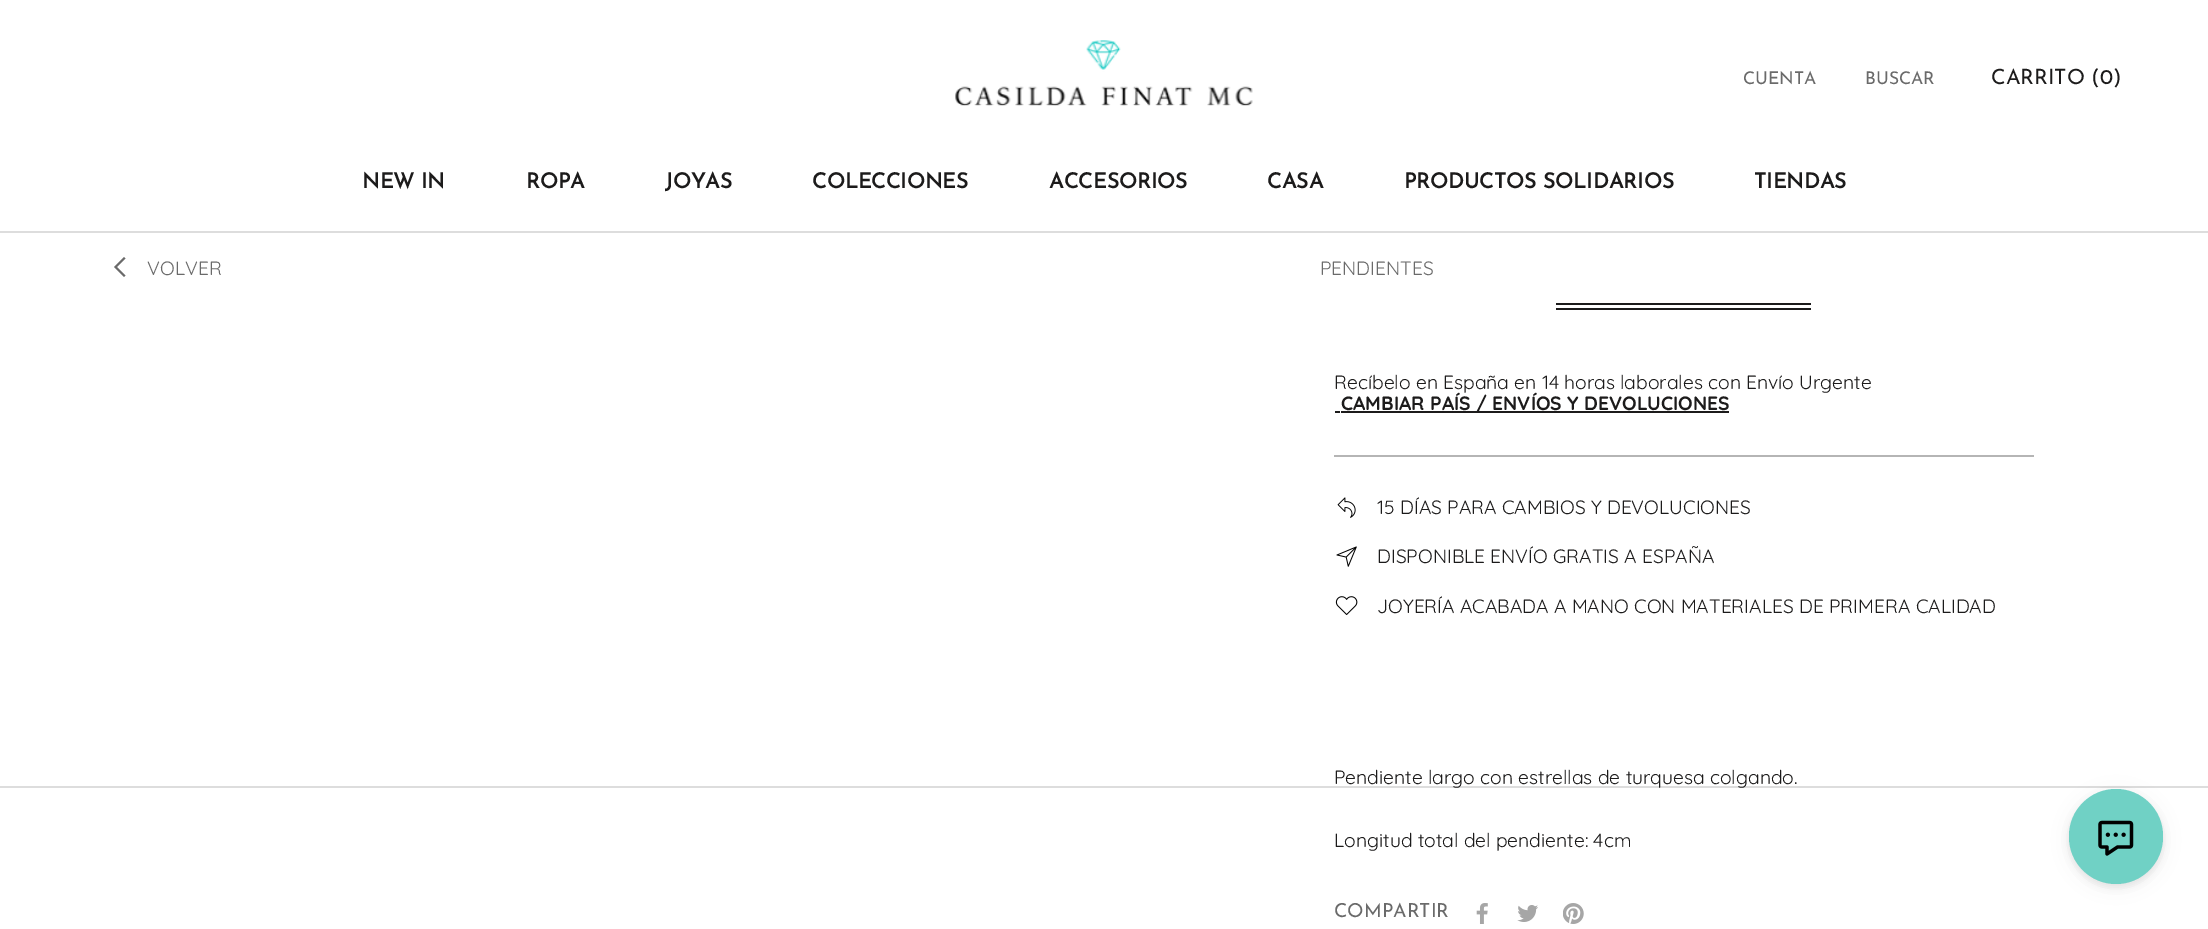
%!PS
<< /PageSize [2208 929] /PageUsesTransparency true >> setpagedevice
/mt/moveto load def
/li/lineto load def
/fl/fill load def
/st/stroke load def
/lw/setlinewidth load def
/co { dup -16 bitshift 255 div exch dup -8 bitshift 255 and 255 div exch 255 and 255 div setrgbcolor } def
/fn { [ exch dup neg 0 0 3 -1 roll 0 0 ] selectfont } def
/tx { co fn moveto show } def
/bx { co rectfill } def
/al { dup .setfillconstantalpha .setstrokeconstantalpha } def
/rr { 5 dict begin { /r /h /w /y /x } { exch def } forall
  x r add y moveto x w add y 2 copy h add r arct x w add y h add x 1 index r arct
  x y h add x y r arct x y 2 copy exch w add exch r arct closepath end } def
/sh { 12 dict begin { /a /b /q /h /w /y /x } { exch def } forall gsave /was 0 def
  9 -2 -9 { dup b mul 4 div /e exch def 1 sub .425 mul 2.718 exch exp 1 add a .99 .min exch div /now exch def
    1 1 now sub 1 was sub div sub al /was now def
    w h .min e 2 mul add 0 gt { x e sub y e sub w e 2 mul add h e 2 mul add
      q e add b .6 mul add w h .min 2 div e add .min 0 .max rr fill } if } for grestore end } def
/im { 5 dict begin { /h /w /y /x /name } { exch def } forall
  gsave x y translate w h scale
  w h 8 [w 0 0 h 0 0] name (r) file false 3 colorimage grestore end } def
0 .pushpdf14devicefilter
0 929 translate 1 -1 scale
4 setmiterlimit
0 0 2208 929 16#FFFFFF bx
0 231 2208 2 16#DDDDDD bx
(media/1.raw) 955 40 298 66 im
16#6A6A6A co
2.1 lw
2 setlinecap
124 275.5 mt 115.5 267 li 124 258.5 li st
1556 303 255 2 16#1C1B1B bx
1556 308 255 2 16#1C1B1B bx
1335 411 5 2 16#1C1B1B bx
1341 411 388 2 16#1C1B1B bx
1334 455 700 2 16#B5B5B5 bx
(media/2.raw) 1337 497 19 21 im
(media/3.raw) 1336 546 21 21 im
(media/4.raw) 1335 596 23 19 im
(media/5.raw) 1476 903 12 21 im
(media/6.raw) 1517 905 21 17 im
(media/7.raw) 1563 903 21 21 im
0 786 2208 2 16#DDDDDD bx
16#000000 co
2069 793 94 94 47 3.5 .08 sh
2069 793 94 94 47 10.5 .06 sh
16#70D1C5 co
2069 789 94 95 47 rr fl
(media/8.raw) 2098 820 36 36 im
(CUENTA) 1743 84 /JosefinSans-Regular 17.5 16#6A6A6A tx
(BUSCAR) 1865 84 /JosefinSans-Regular 17.5 16#6A6A6A tx
(CARRITO \(0\)) 1991 84 /JosefinSans-Regular 21 16#1C1B1B tx
(NEW IN) 362 188 /JosefinSans-Bold 21 16#1C1B1B tx
(ROPA) 526 188 /JosefinSans-Bold 21 16#1C1B1B tx
(JOYAS) 665 188 /JosefinSans-Bold 21 16#1C1B1B tx
(COLECCIONES) 812 188 /JosefinSans-Bold 21 16#1C1B1B tx
(ACCESORIOS) 1049 188 /JosefinSans-Bold 21 16#1C1B1B tx
(CASA) 1267 188 /JosefinSans-Bold 21 16#1C1B1B tx
(PRODUCTOS SOLIDARIOS) 1404 188 /JosefinSans-Bold 21 16#1C1B1B tx
(TIENDAS) 1754 188 /JosefinSans-Bold 21 16#1C1B1B tx
(VOLVER) 147 275 /Quicksand-Regular 19.25 16#6A6A6A tx
(PENDIENTES) 1320 275 /Quicksand-Regular 19.25 16#6A6A6A tx
(Recíbelo en España en 14 horas laborales con Envío Urgente) 1334 389 /Quicksand-Regular 19.25 16#1C1B1B tx
(CAMBIAR PAÍS / ENVÍOS Y DEVOLUCIONES) 1341 410 /Quicksand-Bold 19.25 16#1C1B1B tx
(15 DÍAS PARA CAMBIOS Y DEVOLUCIONES) 1377 514 /Quicksand-Regular 19.25 16#1C1B1B tx
(DISPONIBLE ENVÍO GRATIS A ESPAÑA) 1377 563 /Quicksand-Regular 19.25 16#1C1B1B tx
(JOYERÍA ACABADA A MANO CON MATERIALES DE PRIMERA CALIDAD) 1377 613 /Quicksand-Regular 19.25 16#1C1B1B tx
(Pendiente largo con estrellas de turquesa colgando.) 1334 784 /Quicksand-Regular 19.25 16#1C1B1B tx
(Longitud total del pendiente: 4cm) 1334 847 /Quicksand-Regular 19.25 16#1C1B1B tx
(COMPARTIR) 1334 917 /JosefinSans-Regular 19.25 16#6A6A6A tx
.poppdf14devicefilter showpage
